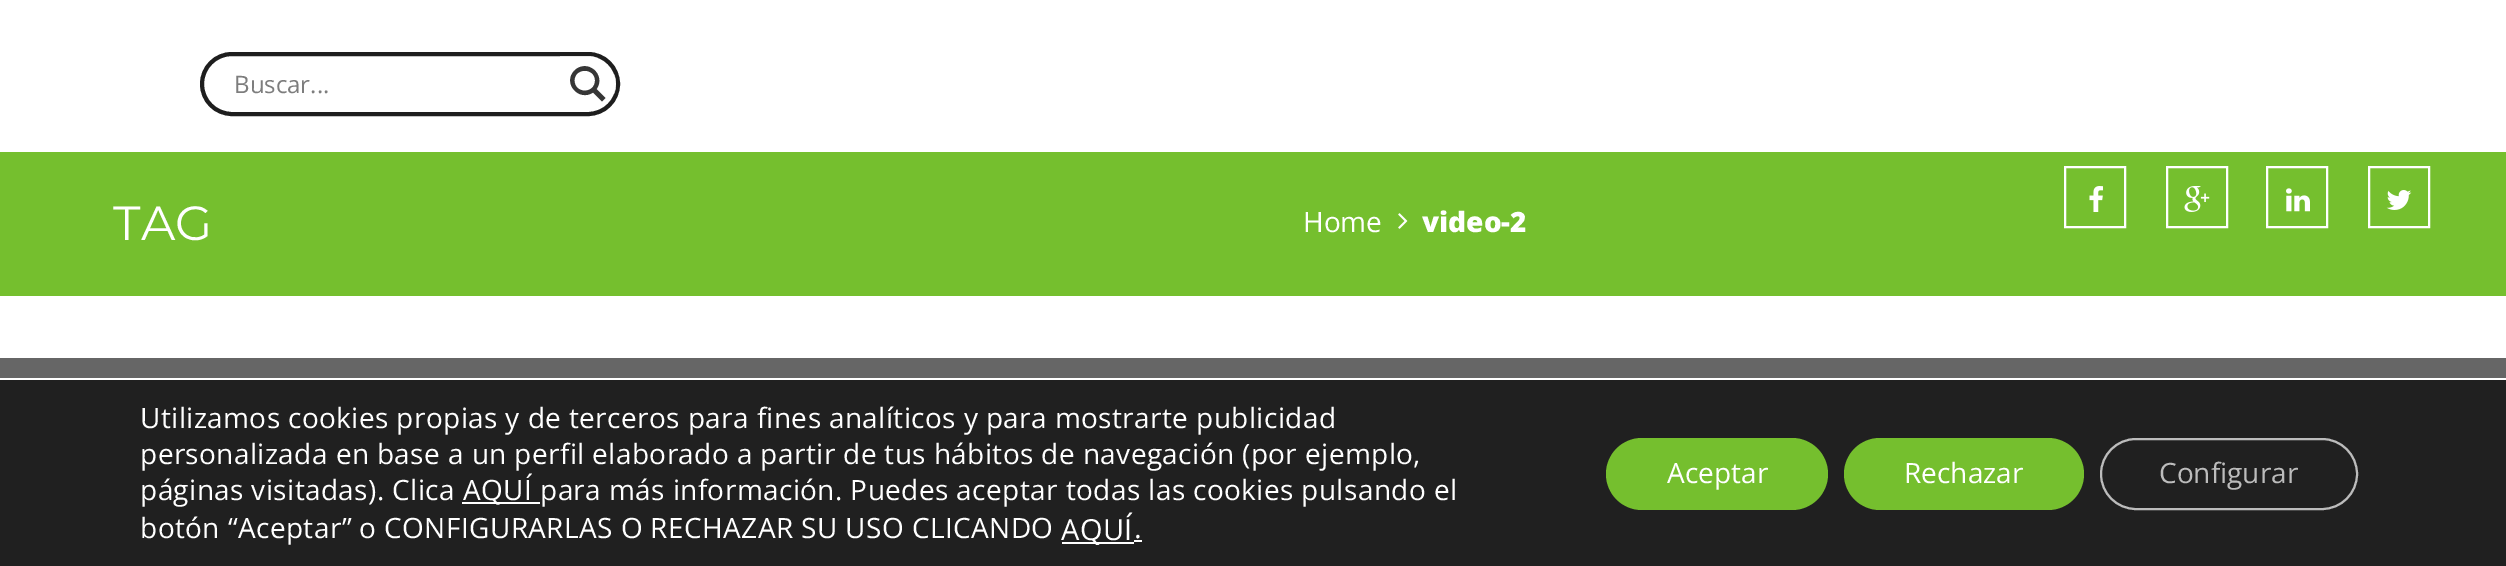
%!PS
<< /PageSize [2506 566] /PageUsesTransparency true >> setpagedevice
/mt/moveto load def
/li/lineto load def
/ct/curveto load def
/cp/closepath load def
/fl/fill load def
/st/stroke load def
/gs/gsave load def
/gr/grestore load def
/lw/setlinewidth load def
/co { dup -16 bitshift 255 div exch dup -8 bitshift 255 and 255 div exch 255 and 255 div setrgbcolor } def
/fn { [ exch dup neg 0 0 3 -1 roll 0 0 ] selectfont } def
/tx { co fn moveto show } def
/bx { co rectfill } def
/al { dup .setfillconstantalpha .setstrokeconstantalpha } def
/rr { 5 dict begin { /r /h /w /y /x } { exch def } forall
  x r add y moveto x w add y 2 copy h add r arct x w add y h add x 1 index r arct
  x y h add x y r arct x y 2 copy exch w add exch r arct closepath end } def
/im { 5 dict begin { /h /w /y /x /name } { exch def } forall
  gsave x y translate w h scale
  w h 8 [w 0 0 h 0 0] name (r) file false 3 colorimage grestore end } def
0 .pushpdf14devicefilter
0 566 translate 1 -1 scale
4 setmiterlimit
0 0 2506 566 16#FFFFFF bx
16#1E1E1E co
4 lw
202 54 416 60 30 rr st
gs
560 56 56 56 rectclip
0.64 al
16#FFFFFF co
558 58 mt 558 112 li 362 112 li 362 56 li 588 56 li 592 56 595 57 598 58 ct cp 614 94 mt 617 88 617 80 614 74 ct cp eofill
gr
16#363636 co
605.5 98 mt 596.5 89 li 606.5 75 587.5 58 574.5 70.5 ct 562 83 579 102 593 92.5 ct 602 101.5 li cp 574.5 80.5 mt 574.5 67.5 595 67.5 595 80.5 ct 595 94 574.5 94 574.5 80.5 ct cp fl
0 152 2506 144 16#75BF2E bx
16#FFFFFF co
2 lw
2065 167 60 60 rectstroke
(media/1.raw) 2089 186 14 26 im
2167 167 60 60 rectstroke
(media/2.raw) 2184 186 26 26 im
2267 167 60 60 rectstroke
(media/3.raw) 2286 188 24 24 im
2369 167 60 60 rectstroke
(media/4.raw) 2386 190 26 20 im
(media/5.raw) 1398 213 10 16 im
0 358 2506 20 16#666666 bx
0 380 2506 186 16#202020 bx
462 502 78 2 16#FFFFFF bx
1062 542 72 2 16#FFFFFF bx
1134 540 8 2 16#FFFFFF bx
16#75BF2E co
1606 438 222 72 36 rr fl
1844 438 240 72 36 rr fl
16#BCBCBC co
2101 439 256 70 35 rr st
(Buscar...) 234 93 /OpenSans-Regular 24 16#7D7D7D tx
(TAG) 113 240 /Montserrat-Regular 48 16#FFFFFF tx
(Home) 1303 232 /OpenSans-Regular 28 16#FFFFFF tx
(video-2) 1422 232 /OpenSans-ExtraBold 28 16#FFFFFF tx
/OpenSans-Regular 28 fn
140 428 mt .4 0 (Utilizamos cookies propias y de terceros para fines analíticos y para mostrarte publicidad) ashow
140 464 mt .4 0 (personalizada en base a un perfil elaborado a partir de tus hábitos de navegación \(por ejemplo,) ashow
140 500 mt .4 0 (páginas visitadas\). Clica) ashow
463 500 mt .4 0 (AQUÍ para más información. Puedes aceptar todas las cookies pulsando el) ashow
140 538 mt .4 0 (botón “Aceptar” o CONFIGURARLAS O RECHAZAR SU USO CLICANDO) ashow
/OpenSans-Regular 29 fn
1061 540 mt .4 0 (AQUÍ) ashow
1134 538 mt .4 0 (.) ashow
(Aceptar) 1667 483 /OpenSans-Regular 28 16#FFFFFF tx
(Rechazar) 1904 483 /OpenSans-Regular 28 16#FFFFFF tx
(Configurar) 2159 483 /OpenSans-Regular 28 16#BCBCBC tx
.poppdf14devicefilter showpage
